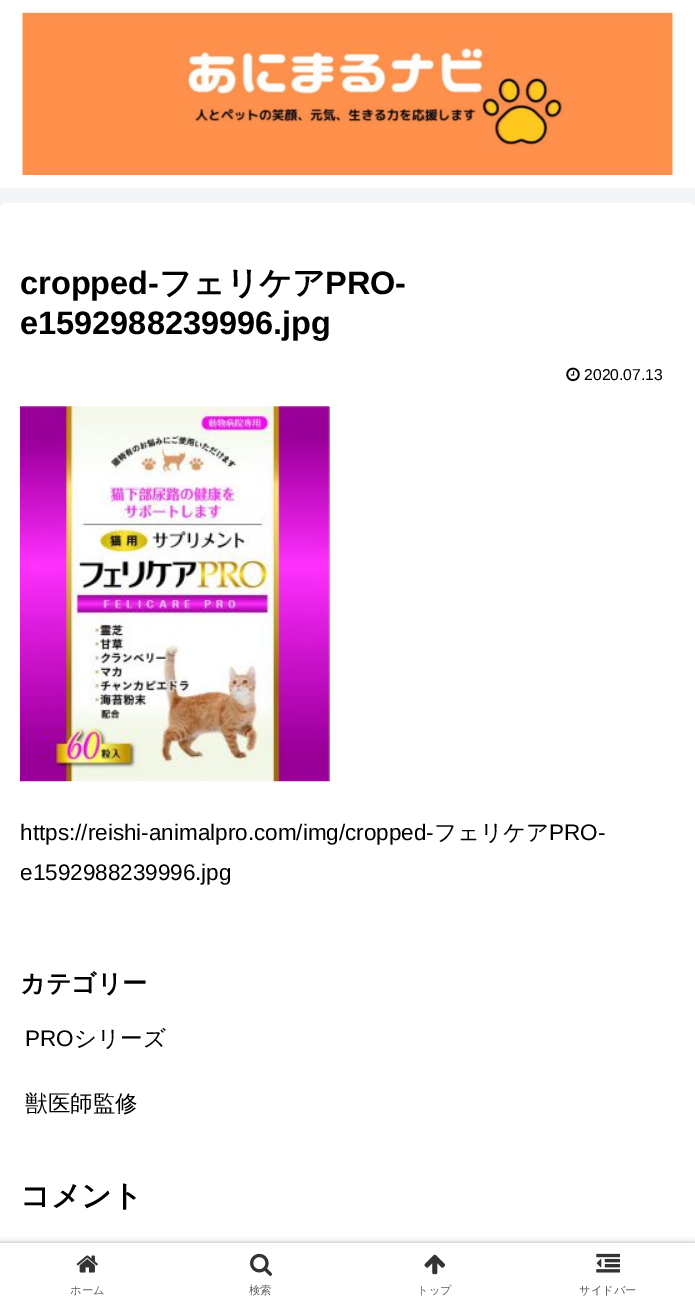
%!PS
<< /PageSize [695 1305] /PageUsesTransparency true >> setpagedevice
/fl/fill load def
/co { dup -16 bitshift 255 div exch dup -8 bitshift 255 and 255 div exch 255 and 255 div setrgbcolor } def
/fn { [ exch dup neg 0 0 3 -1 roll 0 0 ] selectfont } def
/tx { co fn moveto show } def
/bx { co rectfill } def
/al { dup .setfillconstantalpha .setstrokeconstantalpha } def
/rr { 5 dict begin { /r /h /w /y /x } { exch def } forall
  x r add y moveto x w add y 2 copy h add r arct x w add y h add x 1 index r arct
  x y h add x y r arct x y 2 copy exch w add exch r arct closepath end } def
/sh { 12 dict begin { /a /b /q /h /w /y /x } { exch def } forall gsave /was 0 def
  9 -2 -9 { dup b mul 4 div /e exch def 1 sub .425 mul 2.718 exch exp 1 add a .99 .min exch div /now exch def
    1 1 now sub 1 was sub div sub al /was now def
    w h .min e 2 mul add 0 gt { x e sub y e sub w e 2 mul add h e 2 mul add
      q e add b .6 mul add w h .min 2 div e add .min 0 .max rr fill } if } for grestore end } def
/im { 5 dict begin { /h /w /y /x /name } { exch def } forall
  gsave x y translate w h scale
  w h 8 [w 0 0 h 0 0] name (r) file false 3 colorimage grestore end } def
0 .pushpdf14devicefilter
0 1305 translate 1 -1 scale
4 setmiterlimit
0 0 695 1305 16#F4F5F7 bx
0 0 695 188 16#FFFFFF bx
(media/1.raw) 22 12 651 163 im
0 203 695 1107 5 rr fl
(media/2.raw) 566 367 14 15 im
(media/3.raw) 20 406 310 376 im
16#A9A9A9 co
0 1243 695 62 0 3 1 sh
0 1243 695 62 16#FFFFFF bx
(media/4.raw) 76 1255 22 18 im
(media/5.raw) 250 1253 22 23 im
(media/6.raw) 424 1254 22 21 im
(media/7.raw) 596 1253 24 20 im
(cropped-) 20 294 /LiberationSans-Bold 32.5 16#000000 tx
(フェリケア) 159 294 /WenQuanYiZenHei-Bold 32.5 16#000000 tx
(PRO-) 325 294 /LiberationSans-Bold 32.5 16#000000 tx
(e1592988239996.jpg) 20 334 /LiberationSans-Bold 32.5 16#000000 tx
(2020.07.13) 584 380 /LiberationSans-Regular 15.75 16#000000 tx
(https://reishi-animalpro.com/img/cropped-) 20 840 /LiberationSans-Regular 22.5 16#000000 tx
(フェリケア) 434 840 /WenQuanYiZenHei-Medium 22.5 16#000000 tx
(PRO-) 549 840 /LiberationSans-Regular 22.5 16#000000 tx
(e1592988239996.jpg) 20 880 /LiberationSans-Regular 22.5 16#000000 tx
(カテゴリー) 20 992 /WenQuanYiZenHei-Bold 25 16#000000 tx
(PRO) 25 1046 /LiberationSans-Regular 22.5 16#000000 tx
(シリーズ) 74 1046 /WenQuanYiZenHei-Medium 22.5 16#000000 tx
(獣医師監修) 25 1111 /WenQuanYiZenHei-Medium 22.5 16#000000 tx
(コメント) 20 1206 /WenQuanYiZenHei-Bold 30 16#000000 tx
(ホーム) 70 1294 /WenQuanYiZenHei-Medium 11.25 16#5C5C5C tx
(検索) 249 1294 /WenQuanYiZenHei-Medium 11.25 16#5C5C5C tx
(トップ) 417 1294 /WenQuanYiZenHei-Medium 11.25 16#5C5C5C tx
(サイドバー) 579 1294 /WenQuanYiZenHei-Medium 11.25 16#5C5C5C tx
.poppdf14devicefilter showpage
